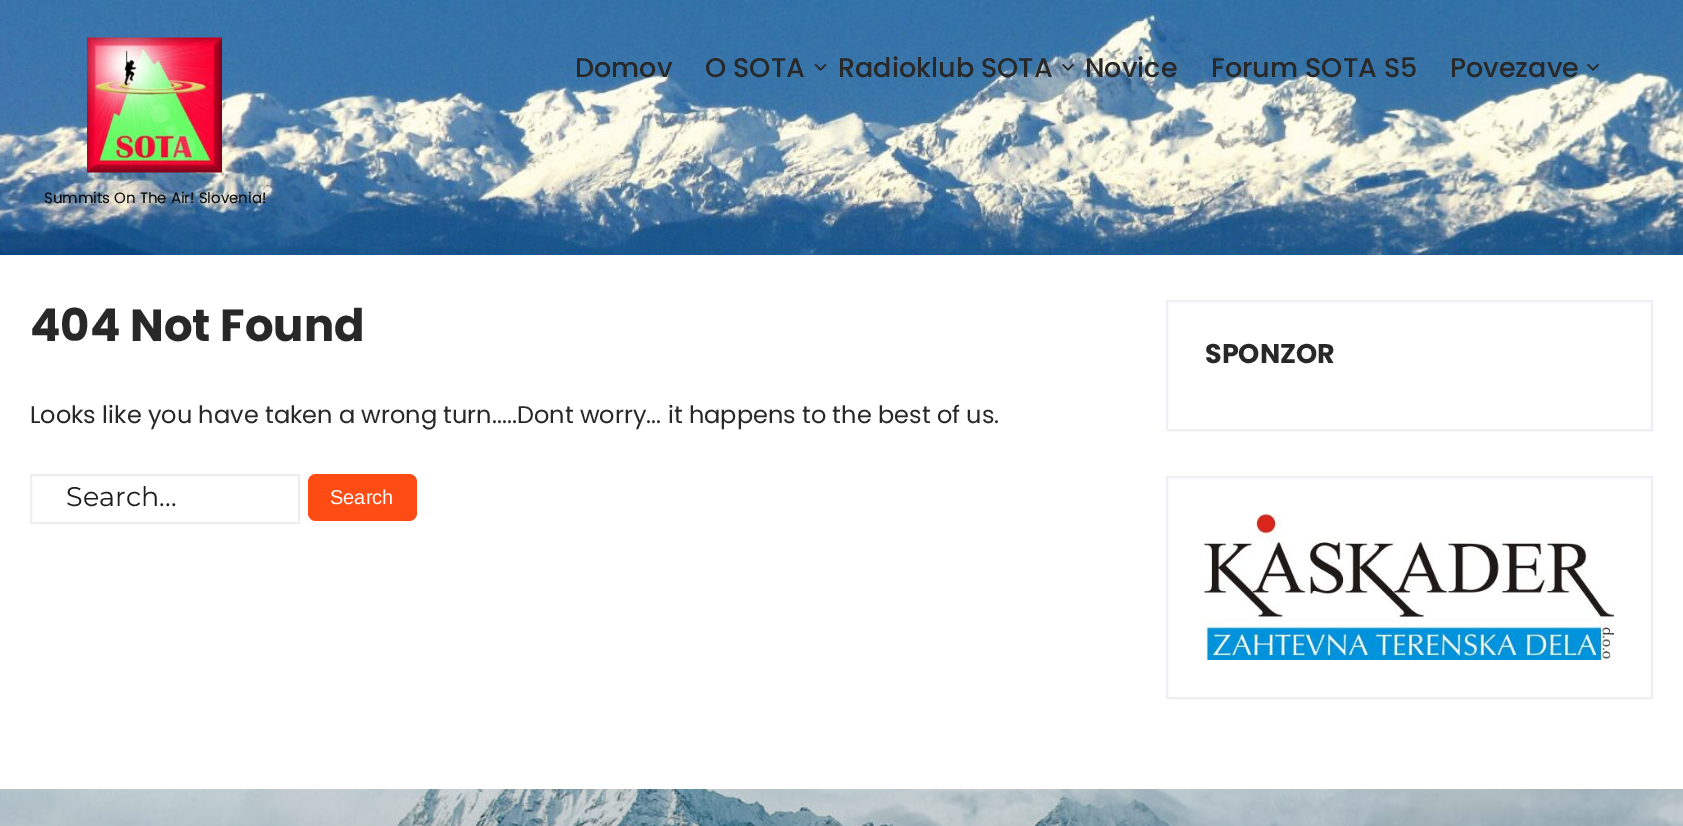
%!PS
<< /PageSize [1683 826] >> setpagedevice
/fl/fill load def
/lw/setlinewidth load def
/co { dup -16 bitshift 255 div exch dup -8 bitshift 255 and 255 div exch 255 and 255 div setrgbcolor } def
/fn { [ exch dup neg 0 0 3 -1 roll 0 0 ] selectfont } def
/tx { co fn moveto show } def
/bx { co rectfill } def
/rr { 5 dict begin { /r /h /w /y /x } { exch def } forall
  x r add y moveto x w add y 2 copy h add r arct x w add y h add x 1 index r arct
  x y h add x y r arct x y 2 copy exch w add exch r arct closepath end } def
/im { 5 dict begin { /h /w /y /x /name } { exch def } forall
  gsave x y translate w h scale
  w h 8 [w 0 0 h 0 0] name (r) file false 3 colorimage grestore end } def
0 826 translate 1 -1 scale
4 setmiterlimit
0 0 1683 826 16#FFFFFF bx
(media/1.raw) 0 0 1683 255 im
(media/2.raw) 814 64 13 7 im
(media/3.raw) 1061 64 14 7 im
(media/4.raw) 1586 64 14 7 im
(media/5.raw) 87 37 135 136 im
16#EEEEEE co
2 lw
31 475 268 48 rectstroke
16#FF4C15 co
308 474 109 47 8 rr fl
16#EEEFF5 co
1167 301 485 129 rectstroke
1167 477 485 221 rectstroke
(media/6.raw) 1204 514 410 146 im
(media/7.raw) 0 789 1683 37 im
(Domov) 575 77 /Poppins-Medium 27 16#282828 tx
(O SOTA) 705 77 /Poppins-Medium 27 16#282828 tx
(Radioklub SOTA) 838 77 /Poppins-Medium 27 16#282828 tx
(Novice) 1085 77 /Poppins-Medium 27 16#282828 tx
(Forum SOTA S5) 1211 77 /Poppins-Medium 27 16#282828 tx
(Povezave) 1450 77 /Poppins-Medium 27 16#282828 tx
(Summits On The Air! Slovenia!) 44 203 /Poppins-Regular 15 16#000000 tx
(404 Not Found) 30 341 /Poppins-Bold 45 16#282828 tx
(Looks like you have taken a wrong turn.....Dont worry... it happens to the best of us.) 30 423 /Poppins-Regular 24 16#282828 tx
(Search...) 66 506 /Montserrat-Regular 27 16#1E1E1E tx
(Search) 330 504 /LiberationSans-Regular 20 16#FFFFFF tx
(SPONZOR) 1205 363 /Poppins-Bold 27 16#282828 tx
showpage
